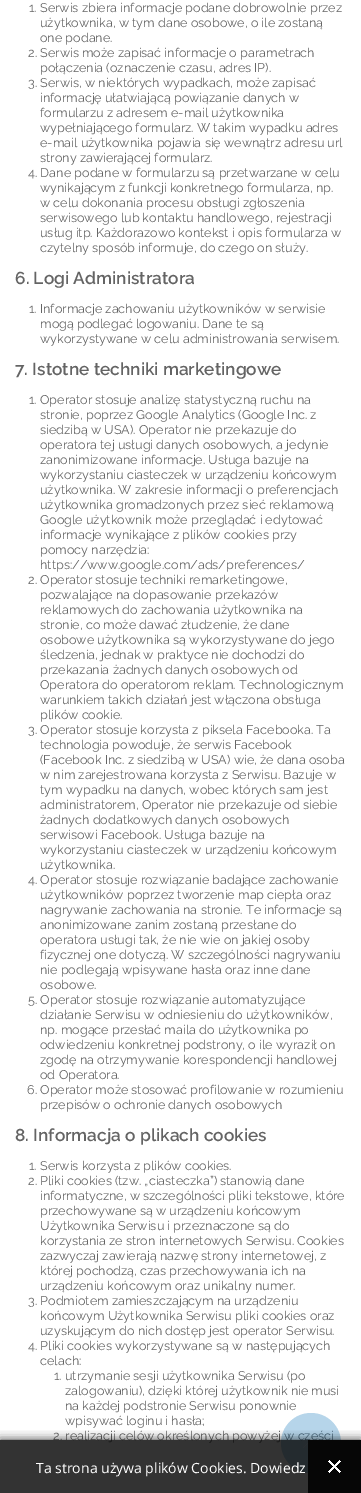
%!PS
<< /PageSize [361 1493] /PageUsesTransparency true >> setpagedevice
/fl/fill load def
/gs/gsave load def
/gr/grestore load def
/co { dup -16 bitshift 255 div exch dup -8 bitshift 255 and 255 div exch 255 and 255 div setrgbcolor } def
/fn { [ exch dup neg 0 0 3 -1 roll 0 0 ] selectfont } def
/tx { co fn moveto show } def
/bx { co rectfill } def
/al { dup .setfillconstantalpha .setstrokeconstantalpha } def
/ci { newpath 0 360 arc closepath } def
/rr { 5 dict begin { /r /h /w /y /x } { exch def } forall
  x r add y moveto x w add y 2 copy h add r arct x w add y h add x 1 index r arct
  x y h add x y r arct x y 2 copy exch w add exch r arct closepath end } def
/sh { 12 dict begin { /a /b /q /h /w /y /x } { exch def } forall gsave /was 0 def
  9 -2 -9 { dup b mul 4 div /e exch def 1 sub .425 mul 2.718 exch exp 1 add a .99 .min exch div /now exch def
    1 1 now sub 1 was sub div sub al /was now def
    w h .min e 2 mul add 0 gt { x e sub y e sub w e 2 mul add h e 2 mul add
      q e add b .6 mul add w h .min 2 div e add .min 0 .max rr fill } if } for grestore end } def
/im { 5 dict begin { /h /w /y /x /name } { exch def } forall
  gsave x y translate w h scale
  w h 8 [w 0 0 h 0 0] name (r) file false 3 colorimage grestore end } def
0 .pushpdf14devicefilter
0 1493 translate 1 -1 scale
4 setmiterlimit
0 0 361 1493 16#FFFFFF bx
(1. Serwis zbiera informacje podane dobrowolnie przez) 29 12 /Raleway-Regular 12.6 16#646464 tx
(użytkownika, w tym dane osobowe, o ile zostaną) 40 27 /Raleway-Regular 12.6 16#646464 tx
(one podane.) 40 42 /Raleway-Regular 12.6 16#646464 tx
(2. Serwis może zapisać informacje o parametrach) 28 57 /Raleway-Regular 12.6 16#646464 tx
(połączenia \(oznaczenie czasu, adres IP\).) 40 72 /Raleway-Regular 12.6 16#646464 tx
(3. Serwis, w niektórych wypadkach, może zapisać) 28 87 /Raleway-Regular 12.6 16#646464 tx
(informację ułatwiającą powiązanie danych w) 40 102 /Raleway-Regular 12.6 16#646464 tx
(formularzu z adresem e-mail użytkownika) 40 117 /Raleway-Regular 12.6 16#646464 tx
(wypełniającego formularz. W takim wypadku adres) 40 132 /Raleway-Regular 12.6 16#646464 tx
(e-mail użytkownika pojawia się wewnątrz adresu url) 40 147 /Raleway-Regular 12.6 16#646464 tx
(strony zawierającej formularz.) 40 162 /Raleway-Regular 12.6 16#646464 tx
(4. Dane podane w formularzu są przetwarzane w celu) 28 177 /Raleway-Regular 12.6 16#646464 tx
(wynikającym z funkcji konkretnego formularza, np.) 40 192 /Raleway-Regular 12.6 16#646464 tx
(w celu dokonania procesu obsługi zgłoszenia) 40 207 /Raleway-Regular 12.6 16#646464 tx
(serwisowego lub kontaktu handlowego, rejestracji) 40 222 /Raleway-Regular 12.6 16#646464 tx
(usług itp. Każdorazowo kontekst i opis formularza w) 40 237 /Raleway-Regular 12.6 16#646464 tx
(czytelny sposób informuje, do czego on służy.) 40 252 /Raleway-Regular 12.6 16#646464 tx
(6. Logi Administratora) 15 284 /Raleway-SemiBold 17.3 16#646464 tx
(1. Informacje zachowaniu użytkowników w serwisie) 29 313 /Raleway-Regular 12.6 16#646464 tx
(mogą podlegać logowaniu. Dane te są) 40 328 /Raleway-Regular 12.6 16#646464 tx
(wykorzystywane w celu administrowania serwisem.) 40 343 /Raleway-Regular 12.6 16#646464 tx
(7. Istotne techniki marketingowe) 15 375 /Raleway-SemiBold 17.3 16#646464 tx
(1. Operator stosuje analizę statystyczną ruchu na) 29 404 /Raleway-Regular 12.6 16#646464 tx
(stronie, poprzez Google Analytics \(Google Inc. z) 40 419 /Raleway-Regular 12.6 16#646464 tx
(siedzibą w USA\). Operator nie przekazuje do) 40 434 /Raleway-Regular 12.6 16#646464 tx
(operatora tej usługi danych osobowych, a jedynie) 40 449 /Raleway-Regular 12.6 16#646464 tx
(zanonimizowane informacje. Usługa bazuje na) 40 464 /Raleway-Regular 12.6 16#646464 tx
(wykorzystaniu ciasteczek w urządzeniu końcowym) 40 479 /Raleway-Regular 12.6 16#646464 tx
(użytkownika. W zakresie informacji o preferencjach) 40 494 /Raleway-Regular 12.6 16#646464 tx
(użytkownika gromadzonych przez sieć reklamową) 40 509 /Raleway-Regular 12.6 16#646464 tx
(Google użytkownik może przeglądać i edytować) 40 524 /Raleway-Regular 12.6 16#646464 tx
(informacje wynikające z plików cookies przy) 40 539 /Raleway-Regular 12.6 16#646464 tx
(pomocy narzędzia:) 40 554 /Raleway-Regular 12.6 16#646464 tx
(https://www.google.com/ads/preferences/) 40 569 /Raleway-Regular 12.6 16#646464 tx
(2. Operator stosuje techniki remarketingowe,) 28 584 /Raleway-Regular 12.6 16#646464 tx
(pozwalające na dopasowanie przekazów) 40 599 /Raleway-Regular 12.6 16#646464 tx
(reklamowych do zachowania użytkownika na) 40 614 /Raleway-Regular 12.6 16#646464 tx
(stronie, co może dawać złudzenie, że dane) 40 629 /Raleway-Regular 12.6 16#646464 tx
(osobowe użytkownika są wykorzystywane do jego) 40 644 /Raleway-Regular 12.6 16#646464 tx
(śledzenia, jednak w praktyce nie dochodzi do) 40 659 /Raleway-Regular 12.6 16#646464 tx
(przekazania żadnych danych osobowych od) 40 674 /Raleway-Regular 12.6 16#646464 tx
(Operatora do operatorom reklam. Technologicznym) 40 689 /Raleway-Regular 12.6 16#646464 tx
(warunkiem takich działań jest włączona obsługa) 40 704 /Raleway-Regular 12.6 16#646464 tx
(plików cookie.) 40 719 /Raleway-Regular 12.6 16#646464 tx
(3. Operator stosuje korzysta z piksela Facebooka. Ta) 28 734 /Raleway-Regular 12.6 16#646464 tx
(technologia powoduje, że serwis Facebook) 40 749 /Raleway-Regular 12.6 16#646464 tx
(\(Facebook Inc. z siedzibą w USA\) wie, że dana osoba) 40 764 /Raleway-Regular 12.6 16#646464 tx
(w nim zarejestrowana korzysta z Serwisu. Bazuje w) 40 779 /Raleway-Regular 12.6 16#646464 tx
(tym wypadku na danych, wobec których sam jest) 40 794 /Raleway-Regular 12.6 16#646464 tx
(administratorem, Operator nie przekazuje od siebie) 40 809 /Raleway-Regular 12.6 16#646464 tx
(żadnych dodatkowych danych osobowych) 40 824 /Raleway-Regular 12.6 16#646464 tx
(serwisowi Facebook. Usługa bazuje na) 40 839 /Raleway-Regular 12.6 16#646464 tx
(wykorzystaniu ciasteczek w urządzeniu końcowym) 40 854 /Raleway-Regular 12.6 16#646464 tx
(użytkownika.) 40 869 /Raleway-Regular 12.6 16#646464 tx
(4. Operator stosuje rozwiązanie badające zachowanie) 28 884 /Raleway-Regular 12.6 16#646464 tx
(użytkowników poprzez tworzenie map ciepła oraz) 40 899 /Raleway-Regular 12.6 16#646464 tx
(nagrywanie zachowania na stronie. Te informacje są) 40 914 /Raleway-Regular 12.6 16#646464 tx
(anonimizowane zanim zostaną przesłane do) 40 929 /Raleway-Regular 12.6 16#646464 tx
(operatora usługi tak, że nie wie on jakiej osoby) 40 944 /Raleway-Regular 12.6 16#646464 tx
(fizycznej one dotyczą. W szczególności nagrywaniu) 40 959 /Raleway-Regular 12.6 16#646464 tx
(nie podlegają wpisywane hasła oraz inne dane) 40 974 /Raleway-Regular 12.6 16#646464 tx
(osobowe.) 40 989 /Raleway-Regular 12.6 16#646464 tx
(5. Operator stosuje rozwiązanie automatyzujące) 28 1004 /Raleway-Regular 12.6 16#646464 tx
(działanie Serwisu w odniesieniu do użytkowników,) 40 1019 /Raleway-Regular 12.6 16#646464 tx
(np. mogące przesłać maila do użytkownika po) 40 1034 /Raleway-Regular 12.6 16#646464 tx
(odwiedzeniu konkretnej podstrony, o ile wyraził on) 40 1049 /Raleway-Regular 12.6 16#646464 tx
(zgodę na otrzymywanie korespondencji handlowej) 40 1064 /Raleway-Regular 12.6 16#646464 tx
(od Operatora.) 40 1079 /Raleway-Regular 12.6 16#646464 tx
(6. Operator może stosować profilowanie w rozumieniu) 27 1094 /Raleway-Regular 12.6 16#646464 tx
(przepisów o ochronie danych osobowych) 40 1109 /Raleway-Regular 12.6 16#646464 tx
(8. Informacja o plikach cookies) 15 1141 /Raleway-SemiBold 17.3 16#646464 tx
(1. Serwis korzysta z plików cookies.) 29 1170 /Raleway-Regular 12.6 16#646464 tx
(2. Pliki cookies \(tzw. „ciasteczka”\) stanowią dane) 28 1185 /Raleway-Regular 12.6 16#646464 tx
(informatyczne, w szczególności pliki tekstowe, które) 40 1200 /Raleway-Regular 12.6 16#646464 tx
(przechowywane są w urządzeniu końcowym) 40 1215 /Raleway-Regular 12.6 16#646464 tx
(Użytkownika Serwisu i przeznaczone są do) 40 1230 /Raleway-Regular 12.6 16#646464 tx
(korzystania ze stron internetowych Serwisu. Cookies) 40 1245 /Raleway-Regular 12.6 16#646464 tx
(zazwyczaj zawierają nazwę strony internetowej, z) 40 1260 /Raleway-Regular 12.6 16#646464 tx
(której pochodzą, czas przechowywania ich na) 40 1275 /Raleway-Regular 12.6 16#646464 tx
(urządzeniu końcowym oraz unikalny numer.) 40 1290 /Raleway-Regular 12.6 16#646464 tx
(3. Podmiotem zamieszczającym na urządzeniu) 28 1305 /Raleway-Regular 12.6 16#646464 tx
(końcowym Użytkownika Serwisu pliki cookies oraz) 40 1320 /Raleway-Regular 12.6 16#646464 tx
(uzyskującym do nich dostęp jest operator Serwisu.) 40 1335 /Raleway-Regular 12.6 16#646464 tx
(4. Pliki cookies wykorzystywane są w następujących) 28 1350 /Raleway-Regular 12.6 16#646464 tx
(celach:) 40 1365 /Raleway-Regular 12.6 16#646464 tx
(1. utrzymanie sesji użytkownika Serwisu \(po) 54 1380 /Raleway-Regular 12.6 16#646464 tx
(zalogowaniu\), dzięki której użytkownik nie musi) 65 1395 /Raleway-Regular 12.6 16#646464 tx
(na każdej podstronie Serwisu ponownie) 65 1410 /Raleway-Regular 12.6 16#646464 tx
(wpisywać loginu i hasła;) 65 1425 /Raleway-Regular 12.6 16#646464 tx
(2. realizacji celów określonych powyżej w części) 53 1440 /Raleway-Regular 12.6 16#646464 tx
0.3 al
16#0E74B8 co
311 1443 30 ci fl
1 al
(media/1.raw) 303 1439 9 9 im
gs
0 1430 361 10 rectclip
16#000000 co
0 1440 361 53 0 5 .8 sh
gr
0.8 al
0 1440 308 53 16#000000 bx
1 al
(Ta strona używa plików Cookies. Dowiedz) 36 1473 /OpenSans-Regular 14 16#FFFFFF tx
308 1440 53 53 16#060606 bx
(media/2.raw) 328 1460 13 13 im
.poppdf14devicefilter showpage
